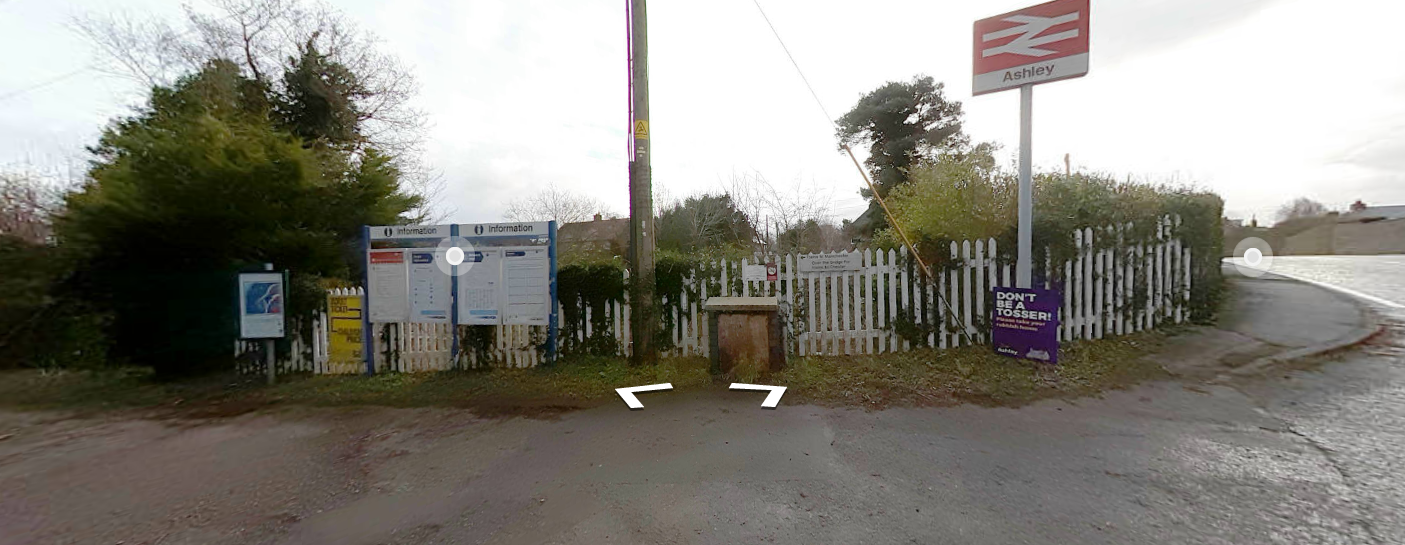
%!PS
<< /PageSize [1405 545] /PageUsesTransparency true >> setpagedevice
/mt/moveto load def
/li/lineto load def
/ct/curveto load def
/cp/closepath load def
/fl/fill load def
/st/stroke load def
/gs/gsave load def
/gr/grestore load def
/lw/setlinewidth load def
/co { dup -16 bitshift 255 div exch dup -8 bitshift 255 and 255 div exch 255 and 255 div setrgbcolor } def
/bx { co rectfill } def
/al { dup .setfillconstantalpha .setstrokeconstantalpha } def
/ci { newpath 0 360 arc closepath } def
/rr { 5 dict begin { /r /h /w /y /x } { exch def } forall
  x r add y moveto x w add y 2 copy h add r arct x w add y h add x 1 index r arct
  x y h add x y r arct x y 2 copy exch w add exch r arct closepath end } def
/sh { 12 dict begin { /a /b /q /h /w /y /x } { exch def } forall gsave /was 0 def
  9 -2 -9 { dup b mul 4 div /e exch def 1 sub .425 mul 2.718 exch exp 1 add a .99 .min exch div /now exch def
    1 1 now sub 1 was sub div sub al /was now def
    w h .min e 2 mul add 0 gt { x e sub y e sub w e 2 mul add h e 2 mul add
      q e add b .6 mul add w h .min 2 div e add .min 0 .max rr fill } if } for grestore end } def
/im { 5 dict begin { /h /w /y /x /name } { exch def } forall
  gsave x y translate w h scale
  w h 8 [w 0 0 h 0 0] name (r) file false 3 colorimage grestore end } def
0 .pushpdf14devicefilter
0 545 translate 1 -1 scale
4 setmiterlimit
0 0 1405 545 16#FFFFFF bx
(media/1.raw) 0 0 1405 545 im
0.3 al
455 256 20 ci fl
1 al
16#000000 co
446 247 18 18 9 5 .1 sh
16#E0E0E0 co
455 256 9 ci fl
0.6 al
16#FFFFFF co
3 lw
455 256 7.5 ci st
gs
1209 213 mt 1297 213 li 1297 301 li 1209 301 li cp 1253 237 mt 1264 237 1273 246 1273 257 ct 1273 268 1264 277 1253 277 ct 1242 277 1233 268 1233 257 ct 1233 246 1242 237 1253 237 ct cp eoclip newpath
1 al
16#000000 co
1233 237 40 40 20 7.5 .15 sh
gr
0.3 al
1253 257 20 ci fl
1 al
16#000000 co
1244 248 18 18 9 5 .1 sh
16#E0E0E0 co
1253 257 9 ci fl
0.6 al
16#FFFFFF co
1253 257 7.5 ci st
0.5 al
16#000000 co
787 390 mt 775 410 li 761 409 li 772 393 li 729 391 li 732 386 li eofill
1 al
16#FFFFFF co
787 387 mt 775 407 li 761 406 li 772 390 li 729 388 li 732 383 li eofill
0.5 al
16#000000 co
615 392 mt 670 386 li 673 391 li 631 395 li 644 410 li 631 411 li eofill
1 al
16#FFFFFF co
615 389 mt 670 383 li 673 388 li 631 392 li 644 407 li 631 408 li eofill
.poppdf14devicefilter showpage
